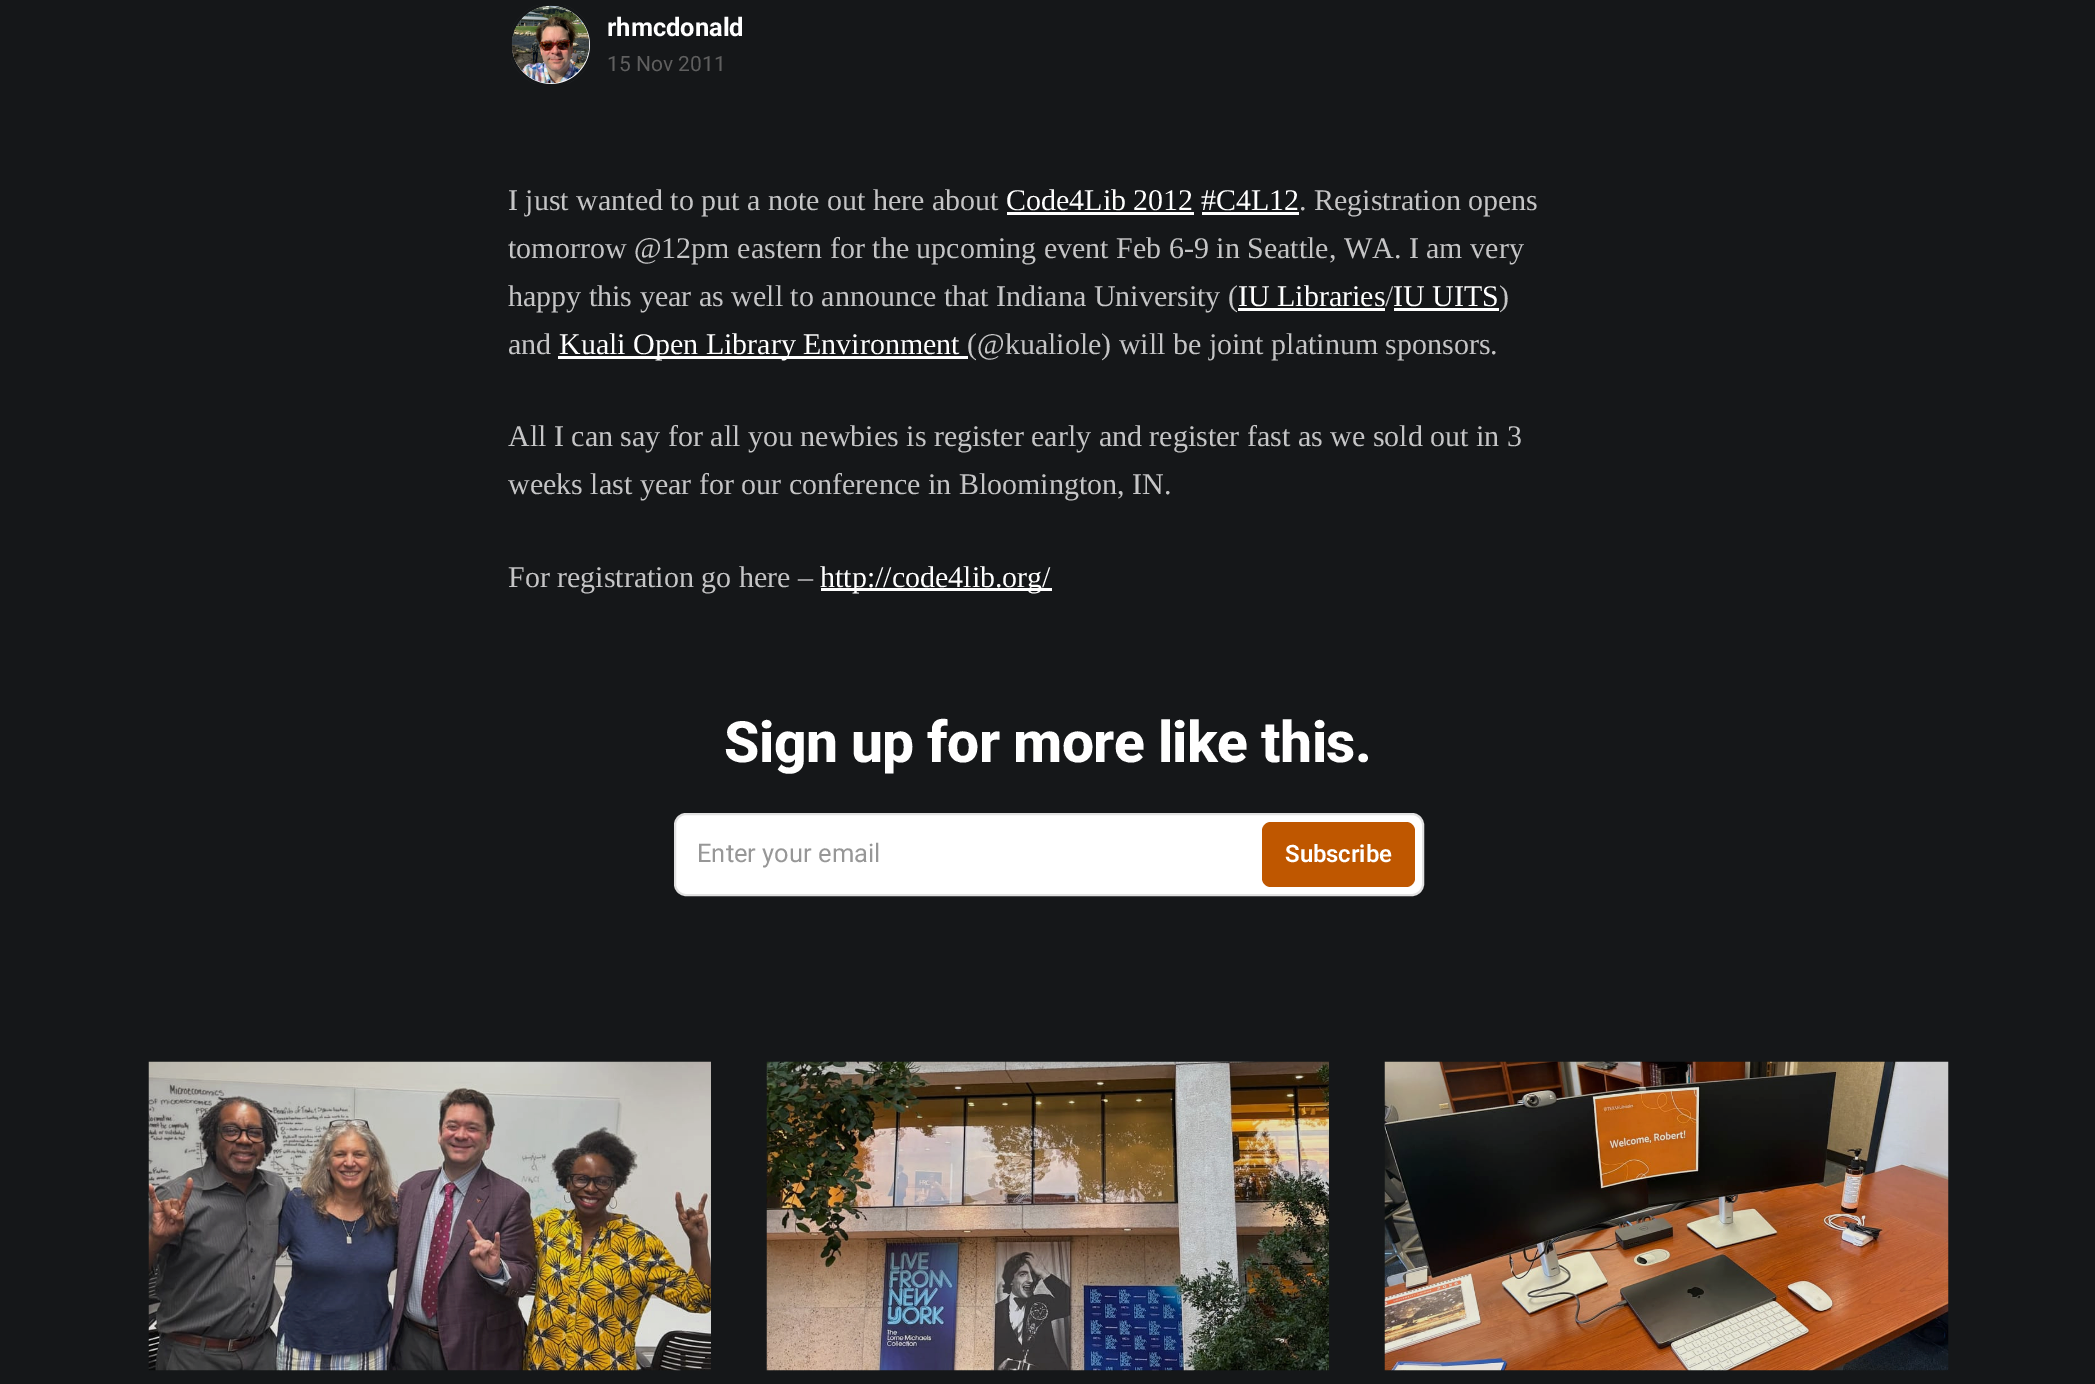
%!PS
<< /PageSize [2095 1384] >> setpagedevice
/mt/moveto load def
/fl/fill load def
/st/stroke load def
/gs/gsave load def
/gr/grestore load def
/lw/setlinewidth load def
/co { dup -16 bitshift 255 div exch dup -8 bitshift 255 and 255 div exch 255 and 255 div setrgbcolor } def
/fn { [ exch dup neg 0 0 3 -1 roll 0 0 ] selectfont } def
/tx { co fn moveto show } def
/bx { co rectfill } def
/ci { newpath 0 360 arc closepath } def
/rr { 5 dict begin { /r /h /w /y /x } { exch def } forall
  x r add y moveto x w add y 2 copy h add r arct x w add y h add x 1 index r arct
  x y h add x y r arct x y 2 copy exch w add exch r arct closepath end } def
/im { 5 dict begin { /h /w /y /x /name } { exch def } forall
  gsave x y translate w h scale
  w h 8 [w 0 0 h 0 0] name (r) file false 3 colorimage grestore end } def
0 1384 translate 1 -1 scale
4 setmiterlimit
0 0 2095 1384 16#151719 bx
16#FFFFFF co
551 45 39 ci fl
(media/1.raw) 511 5 79 79 im
1007 212 187 3 16#FFFFFF bx
1202 212 97 3 16#FFFFFF bx
1238 308 147 3 16#FFFFFF bx
1394 308 105 3 16#FFFFFF bx
558 356 410 3 16#FFFFFF bx
821 588 231 3 16#FFFFFF bx
675 814 748 81 11 rr gs fl gr
16#E1E1E1 co
2 lw
st
16#BF5700 co
1262 822 153 65 9 rr fl
(media/2.raw) 148 1061 563 310 im
(media/3.raw) 766 1061 563 310 im
(media/4.raw) 1384 1061 565 310 im
(rhmcdonald) 607 36 /Roboto-Bold 25.5 16#FFFFFF tx
(15 Nov 2011) 607 71 /Roboto-Regular 21 16#5F5F5F tx
(I just wanted to put a note out here about) 508 210 /LiberationSerif-Regular 30 16#C5C5C6 tx
(Code4Lib 2012 #C4L12) 1006 210 /LiberationSerif-Regular 30 16#FFFFFF tx
(. Registration opens) 1299 210 /LiberationSerif-Regular 30 16#C5C5C6 tx
(tomorrow @12pm eastern for the upcoming event Feb 6-9 in Seattle, WA. I am very) 508 258 /LiberationSerif-Regular 30 16#C5C5C6 tx
(happy this year as well to announce that Indiana University \() 508 306 /LiberationSerif-Regular 30 16#C5C5C6 tx
(IU Libraries) 1238 306 /LiberationSerif-Regular 30 16#FFFFFF tx
(/) 1385 306 /LiberationSerif-Regular 30 16#C5C5C6 tx
(IU UITS) 1393 306 /LiberationSerif-Regular 30 16#FFFFFF tx
(\)) 1499 306 /LiberationSerif-Regular 30 16#C5C5C6 tx
(and) 508 354 /LiberationSerif-Regular 30 16#C5C5C6 tx
(Kuali Open Library Environment) 559 354 /LiberationSerif-Regular 30 16#FFFFFF tx
(\(@kualiole\) will be joint platinum sponsors.) 967 354 /LiberationSerif-Regular 30 16#C5C5C6 tx
(All I can say for all you newbies is register early and register fast as we sold out in 3) 508 446 /LiberationSerif-Regular 30 16#C5C5C6 tx
(weeks last year for our conference in Bloomington, IN.) 508 494 /LiberationSerif-Regular 30 16#C5C5C6 tx
(For registration go here –) 508 587 /LiberationSerif-Regular 30 16#C5C5C6 tx
(http://code4lib.org/) 820 587 /LiberationSerif-Regular 30 16#FFFFFF tx
/Roboto-ExtraBold 57 fn
724 762 mt -.6 0 (Sign up for more like this.) ashow
(Enter your email) 697 862 /Roboto-Regular 25.5 16#979797 tx
/Roboto-SemiBold 24 fn
16#FFFFFF co
1285 862 mt -.1 0 (Subscribe) ashow
showpage
